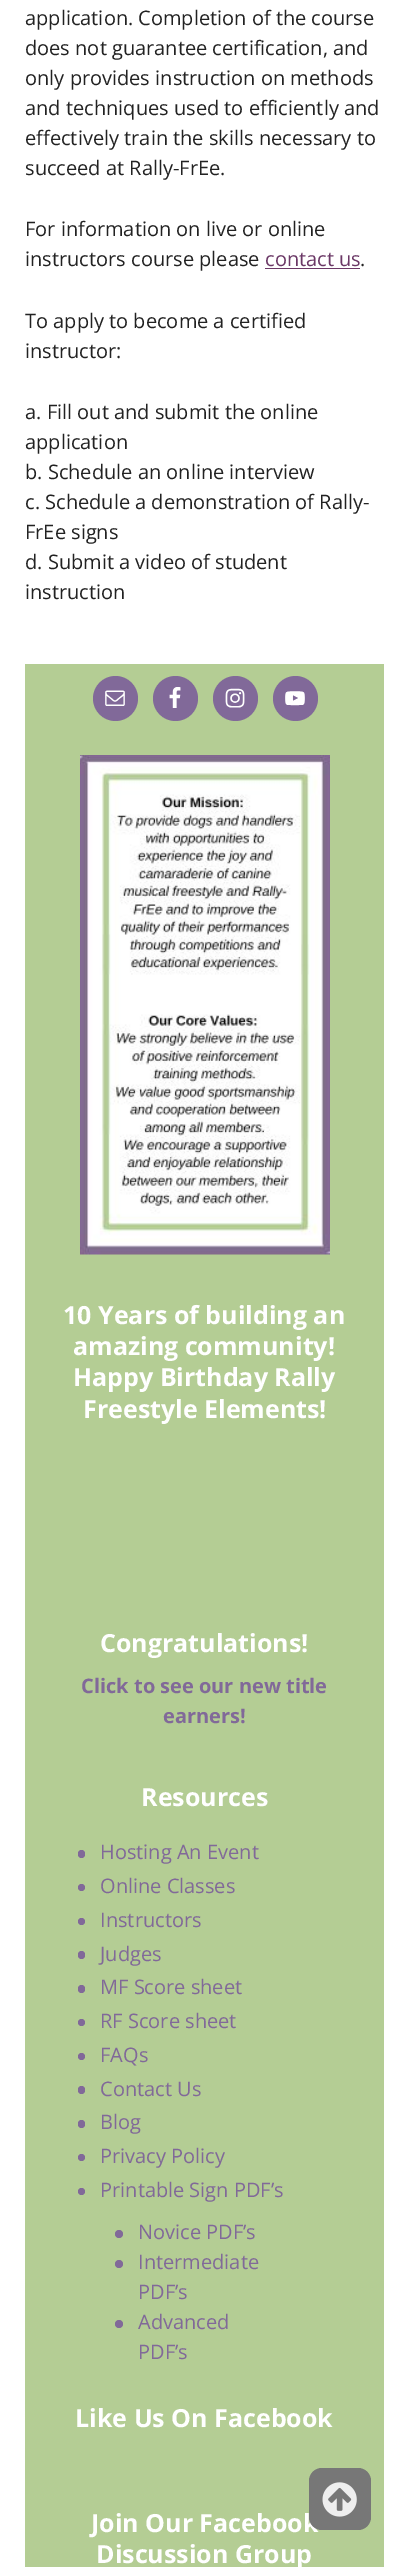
%!PS
<< /PageSize [408 2567] >> setpagedevice
/fl/fill load def
/co { dup -16 bitshift 255 div exch dup -8 bitshift 255 and 255 div exch 255 and 255 div setrgbcolor } def
/fn { [ exch dup neg 0 0 3 -1 roll 0 0 ] selectfont } def
/tx { co fn moveto show } def
/bx { co rectfill } def
/ci { newpath 0 360 arc closepath } def
/rr { 5 dict begin { /r /h /w /y /x } { exch def } forall
  x r add y moveto x w add y 2 copy h add r arct x w add y h add x 1 index r arct
  x y h add x y r arct x y 2 copy exch w add exch r arct closepath end } def
/im { 5 dict begin { /h /w /y /x /name } { exch def } forall
  gsave x y translate w h scale
  w h 8 [w 0 0 h 0 0] name (r) file false 3 colorimage grestore end } def
0 2567 translate 1 -1 scale
4 setmiterlimit
0 0 408 2567 16#FFFFFF bx
265 268 95 1 16#6B3866 bx
25 664 359 1903 16#B4CD94 bx
(media/1.raw) 80 755 250 500 im
16#816999 co
115.5 698.5 22.5 ci fl
(media/2.raw) 105 690 20 16 im
175.5 698.5 22.5 ci fl
(media/3.raw) 169 687 12 21 im
235.5 698.5 22.5 ci fl
(media/4.raw) 225 688 20 20 im
295.5 698.5 22.5 ci fl
(media/5.raw) 285 691 20 15 im
78 1850 7 8 3.5 rr fl
81.5 1887.5 3.5 ci fl
81.5 1921.5 3.5 ci fl
78 1951 7 8 3.5 rr fl
78 1985 7 8 3.5 rr fl
81.5 2022.5 3.5 ci fl
81.5 2056.5 3.5 ci fl
78 2086 7 8 3.5 rr fl
78 2120 7 8 3.5 rr fl
81.5 2157.5 3.5 ci fl
81.5 2191.5 3.5 ci fl
119 2234 4 ci fl
119 2264 4 ci fl
119 2324 4 ci fl
(application. Completion of the course) 25 25 /OpenSans-Regular 20 16#222222 tx
(does not guarantee certification, and) 25 55 /OpenSans-Regular 20 16#222222 tx
(only provides instruction on methods) 25 85 /OpenSans-Regular 20 16#222222 tx
(and techniques used to efficiently and) 25 115 /OpenSans-Regular 20 16#222222 tx
(effectively train the skills necessary to) 25 145 /OpenSans-Regular 20 16#222222 tx
(succeed at Rally-FrEe.) 25 175 /OpenSans-Regular 20 16#222222 tx
(For information on live or online) 25 236 /OpenSans-Regular 20 16#222222 tx
(instructors course please) 25 266 /OpenSans-Regular 20 16#222222 tx
(contact us) 265 266 /OpenSans-Regular 20 16#6B3866 tx
(.) 360 266 /OpenSans-Regular 20 16#222222 tx
(To apply to become a certified) 25 328 /OpenSans-Regular 20 16#222222 tx
(instructor:) 25 358 /OpenSans-Regular 20 16#222222 tx
(a. Fill out and submit the online) 25 419 /OpenSans-Regular 20 16#222222 tx
(application) 25 449 /OpenSans-Regular 20 16#222222 tx
(b. Schedule an online interview) 25 479 /OpenSans-Regular 20 16#222222 tx
(c. Schedule a demonstration of Rally-) 25 509 /OpenSans-Regular 20 16#222222 tx
(FrEe signs) 25 539 /OpenSans-Regular 20 16#222222 tx
(d. Submit a video of student) 25 569 /OpenSans-Regular 20 16#222222 tx
(instruction) 25 599 /OpenSans-Regular 20 16#222222 tx
(10 Years of building an) 63 1324 /OpenSans-Bold 25 16#FFFFFF tx
(amazing community!) 73 1355 /OpenSans-Bold 25 16#FFFFFF tx
(Happy Birthday Rally) 73 1386 /OpenSans-Bold 25 16#FFFFFF tx
(Freestyle Elements!) 83 1418 /OpenSans-Bold 25 16#FFFFFF tx
(Congratulations!) 100 1652 /OpenSans-Bold 25 16#FFFFFF tx
(Click to see our new title) 81 1693 /OpenSans-Bold 20 16#816999 tx
(earners!) 163 1723 /OpenSans-Bold 20 16#816999 tx
(Resources) 141 1806 /OpenSans-Bold 25 16#FFFFFF tx
(Hosting An Event) 100 1859 /OpenSans-Regular 20 16#816999 tx
(Online Classes) 100 1893 /OpenSans-Regular 20 16#816999 tx
(Instructors) 100 1927 /OpenSans-Regular 20 16#816999 tx
(Judges) 100 1961 /OpenSans-Regular 20 16#816999 tx
(MF Score sheet) 100 1994 /OpenSans-Regular 20 16#816999 tx
(RF Score sheet) 100 2028 /OpenSans-Regular 20 16#816999 tx
(FAQs) 100 2062 /OpenSans-Regular 20 16#816999 tx
(Contact Us) 100 2096 /OpenSans-Regular 20 16#816999 tx
(Blog) 100 2129 /OpenSans-Regular 20 16#816999 tx
(Privacy Policy) 100 2163 /OpenSans-Regular 20 16#816999 tx
(Printable Sign PDF’s) 100 2197 /OpenSans-Regular 20 16#816999 tx
(Novice PDF’s) 138 2239 /OpenSans-Regular 20 16#816999 tx
(Intermediate) 138 2269 /OpenSans-Regular 20 16#816999 tx
(PDF’s) 138 2299 /OpenSans-Regular 20 16#816999 tx
(Advanced) 138 2329 /OpenSans-Regular 20 16#816999 tx
(PDF’s) 138 2359 /OpenSans-Regular 20 16#816999 tx
(Like Us On Facebook) 75 2427 /OpenSans-Bold 25 16#FFFFFF tx
(Join Our Facebook) 91 2532 /OpenSans-Bold 25 16#FFFFFF tx
(Discussion Group) 96 2563 /OpenSans-Bold 25 16#FFFFFF tx
16#777777 co
309 2468 62 62 13 rr fl
(media/6.raw) 322 2482 35 35 im
showpage
